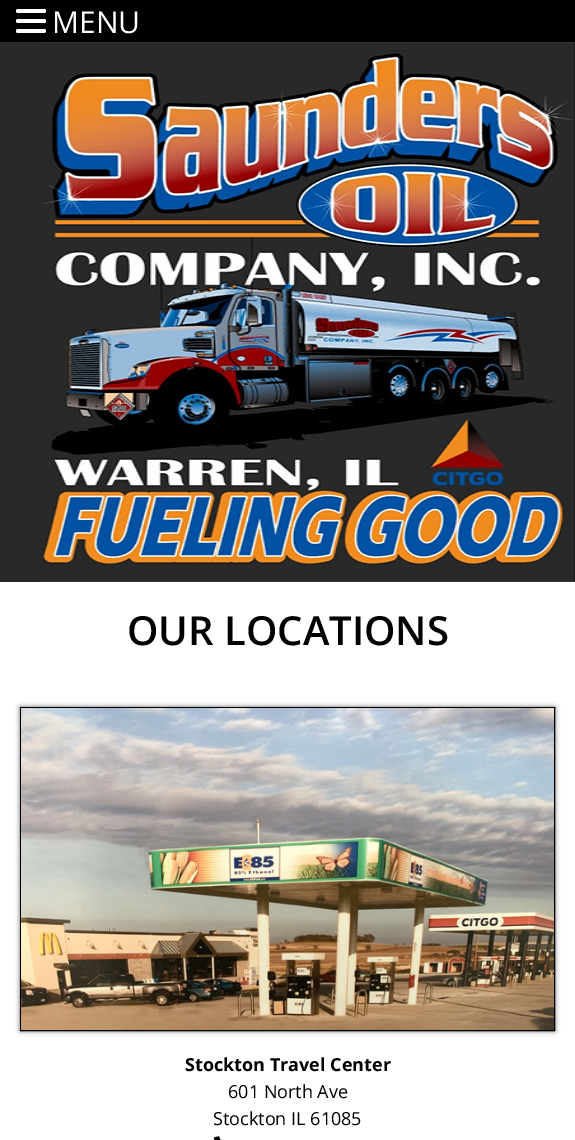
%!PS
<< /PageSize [575 1140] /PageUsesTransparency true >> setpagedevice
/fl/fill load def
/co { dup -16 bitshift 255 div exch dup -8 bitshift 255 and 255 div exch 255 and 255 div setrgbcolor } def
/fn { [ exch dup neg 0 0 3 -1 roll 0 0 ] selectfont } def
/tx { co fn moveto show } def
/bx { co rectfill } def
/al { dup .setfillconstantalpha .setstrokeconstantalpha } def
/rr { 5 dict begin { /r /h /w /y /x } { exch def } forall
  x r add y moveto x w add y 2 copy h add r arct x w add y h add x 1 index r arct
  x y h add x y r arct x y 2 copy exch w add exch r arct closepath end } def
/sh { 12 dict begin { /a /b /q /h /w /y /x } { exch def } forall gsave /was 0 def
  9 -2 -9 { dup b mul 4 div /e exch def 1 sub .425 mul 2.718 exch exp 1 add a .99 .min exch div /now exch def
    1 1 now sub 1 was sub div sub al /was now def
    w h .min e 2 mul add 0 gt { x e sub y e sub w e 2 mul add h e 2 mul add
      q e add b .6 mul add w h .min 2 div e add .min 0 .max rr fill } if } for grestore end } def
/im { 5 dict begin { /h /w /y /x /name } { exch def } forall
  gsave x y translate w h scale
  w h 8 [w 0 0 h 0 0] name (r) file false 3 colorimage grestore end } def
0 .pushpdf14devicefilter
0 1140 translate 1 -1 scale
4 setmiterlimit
0 0 575 1140 16#FFFFFF bx
0 0 575 42 16#000000 bx
16#FFFFFF co
16 9 30 4 2 rr fl
16 19 30 4 2 rr fl
16 29 30 4 2 rr fl
(media/1.raw) 0 42 575 540 im
16#666666 co
20 707 535 324 0 2.5 1 sh
16#000000 co
20.5 707.5 534 323 rectstroke
(media/2.raw) 21 708 533 322 im
(media/3.raw) 214 1136 7 4 im
(MENU) 52 33 /OpenSans-Regular 30 16#FFFFFF tx
(OUR LOCATIONS) 127 645 /OpenSans-SemiBold 40 16#000000 tx
(Stockton Travel Center) 185 1071 /OpenSans-Bold 18 16#000000 tx
(601 North Ave) 228 1098 /OpenSans-Regular 18 16#000000 tx
(Stockton IL 61085) 213 1125 /OpenSans-Regular 18 16#000000 tx
.poppdf14devicefilter showpage
